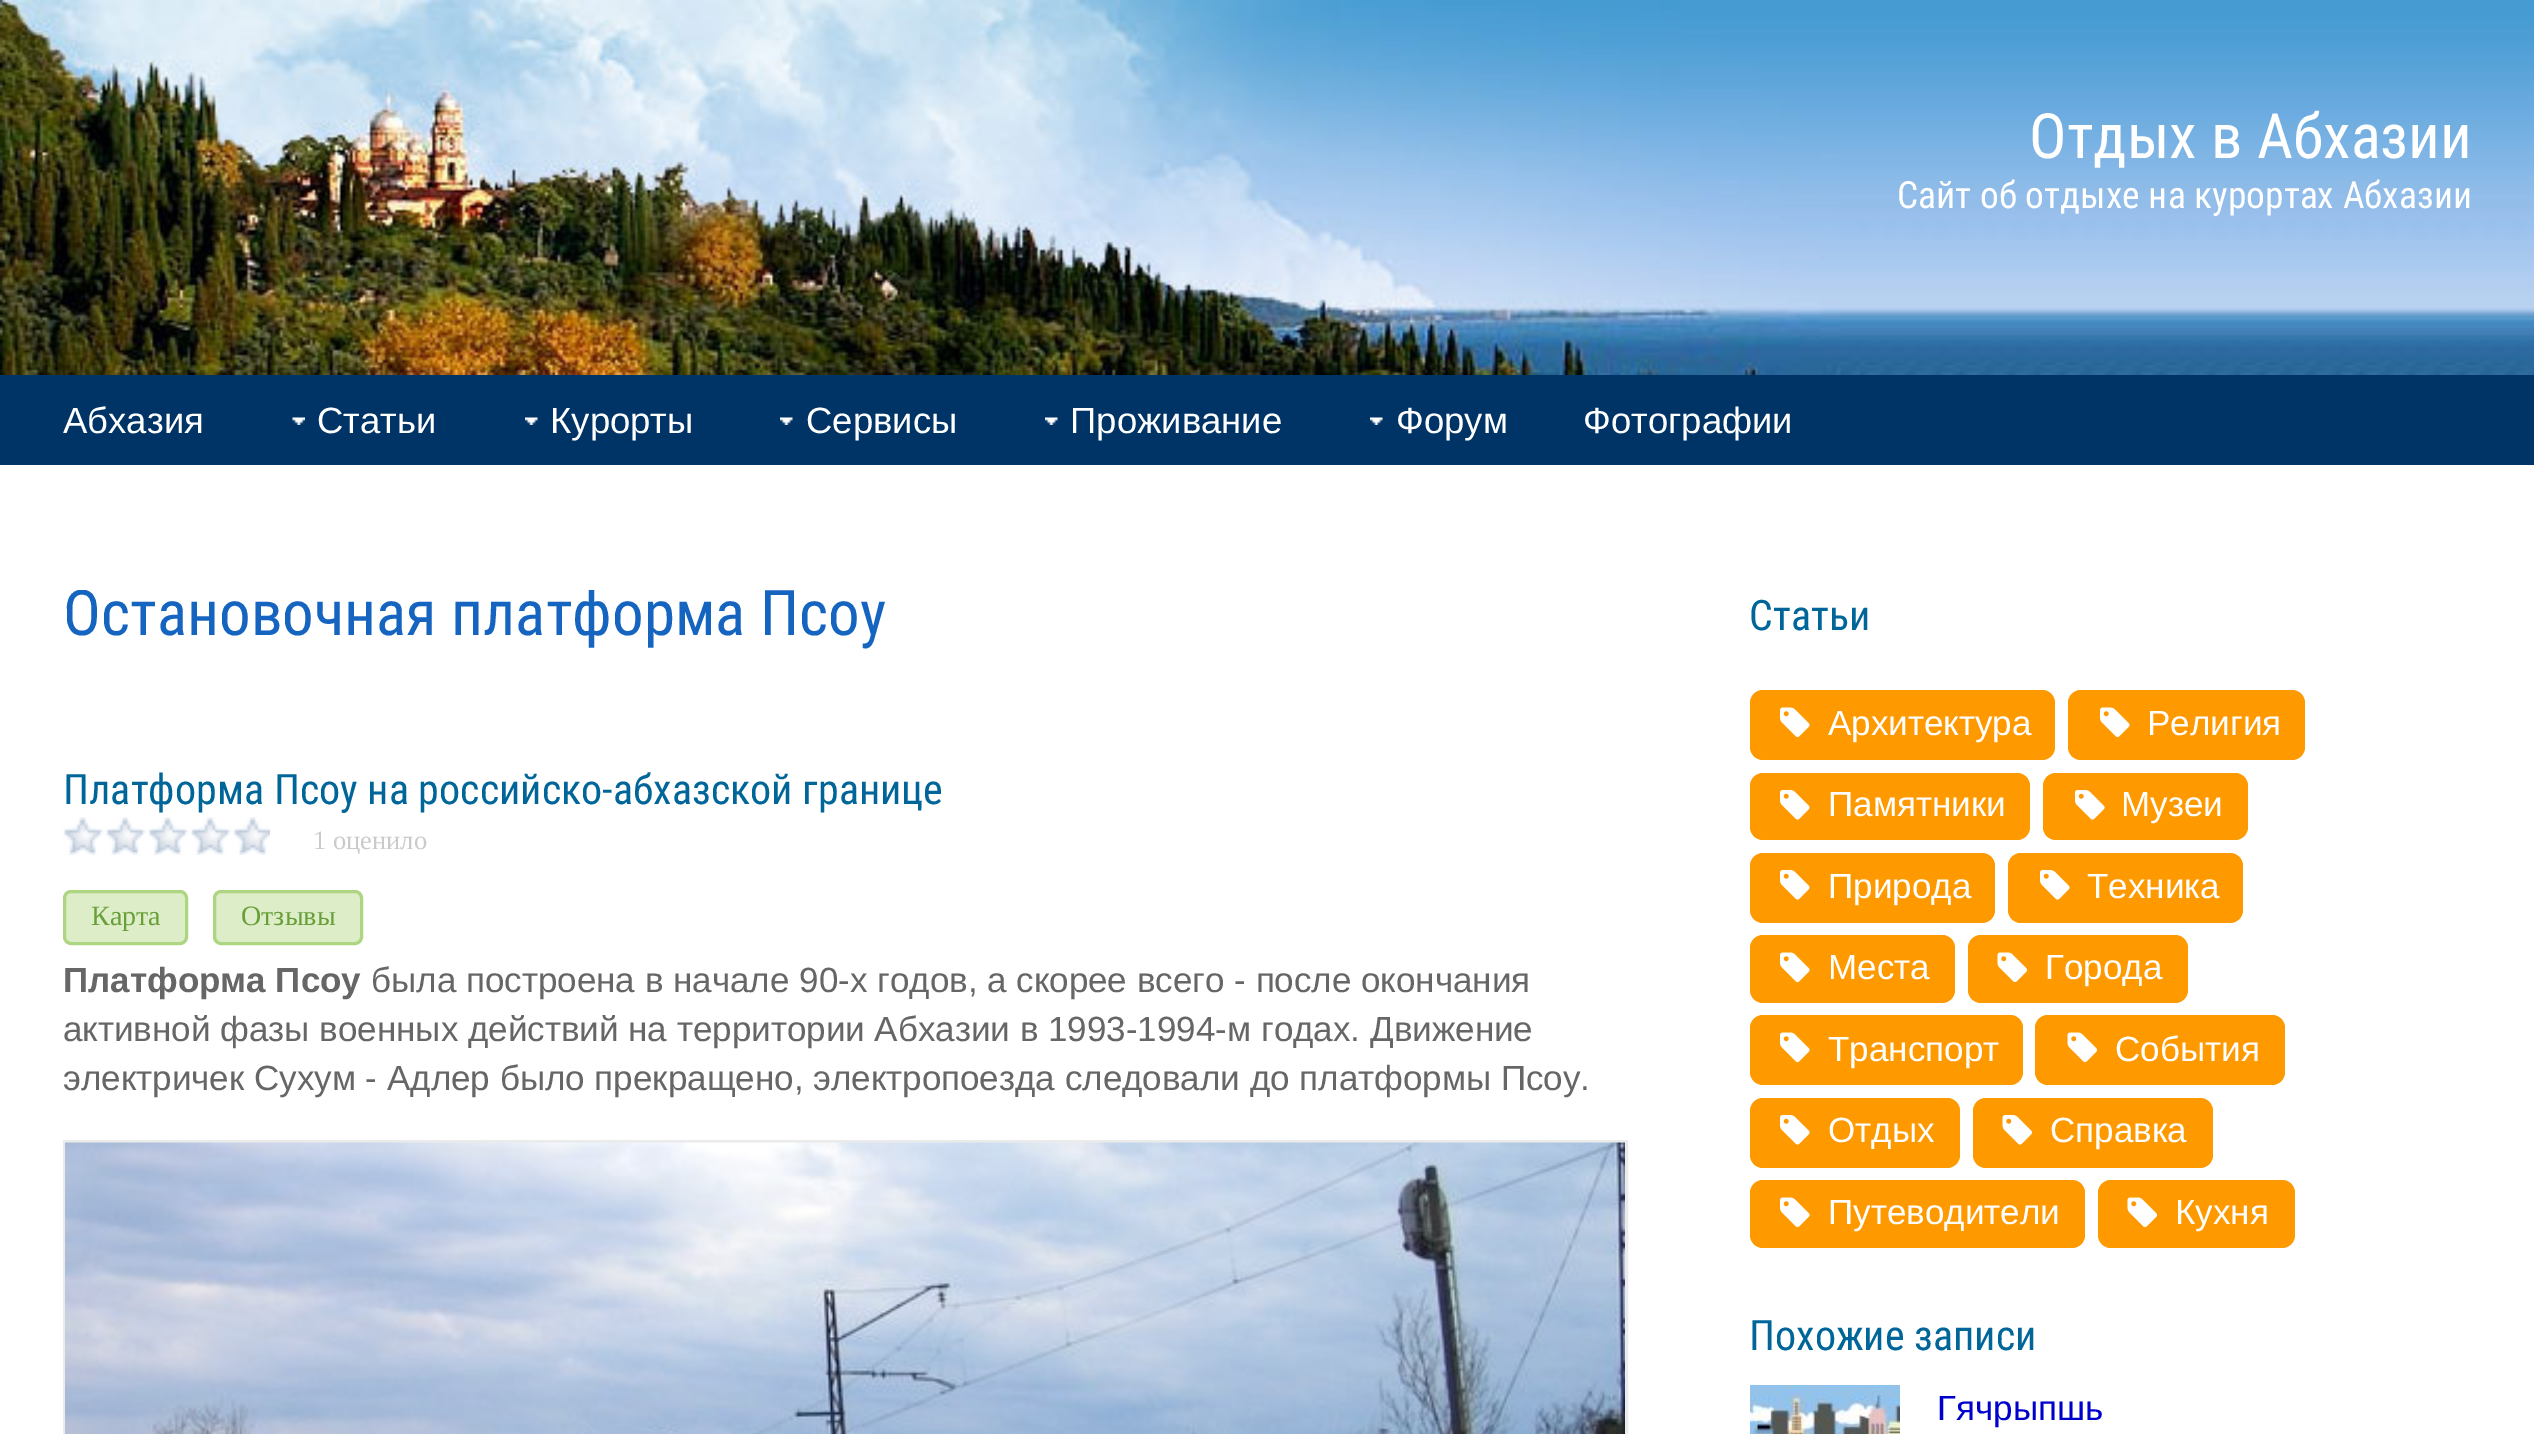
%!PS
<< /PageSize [2534 1434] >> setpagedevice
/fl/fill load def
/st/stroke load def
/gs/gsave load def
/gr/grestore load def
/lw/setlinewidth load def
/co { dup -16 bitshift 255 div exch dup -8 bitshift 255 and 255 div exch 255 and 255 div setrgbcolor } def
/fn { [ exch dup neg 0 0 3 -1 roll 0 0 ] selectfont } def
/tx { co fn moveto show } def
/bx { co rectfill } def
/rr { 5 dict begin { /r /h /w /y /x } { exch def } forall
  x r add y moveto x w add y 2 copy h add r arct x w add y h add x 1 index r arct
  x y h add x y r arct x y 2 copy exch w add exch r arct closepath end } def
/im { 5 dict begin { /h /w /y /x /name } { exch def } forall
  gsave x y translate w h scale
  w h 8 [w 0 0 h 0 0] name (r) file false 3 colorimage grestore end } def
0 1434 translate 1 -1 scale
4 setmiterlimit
0 0 2534 1434 16#FFFFFF bx
(media/1.raw) 0 0 2534 375 im
0 375 2534 90 16#003366 bx
(media/2.raw) 292 417 13 8 im
(media/3.raw) 525 417 13 8 im
(media/3.raw) 780 417 13 8 im
(media/3.raw) 1045 417 13 8 im
(media/4.raw) 1370 417 13 8 im
(media/5.raw) 63 817 207 38 im
16#DCEDC8 co
64.5 891.5 122 52 6.5 rr gs fl gr
16#AED581 co
3 lw
st
16#DCEDC8 co
214.5 891.5 147 52 6.5 rr gs fl gr
16#AED581 co
st
16#EBEBEB co
64.5 1141.5 1562 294 rectstroke
(media/6.raw) 65 1142 1560 292 im
16#FF9900 co
1750 690 305 70 13 rr fl
(media/7.raw) 1780 707 30 31 im
2068 690 237 70 13 rr fl
(media/7.raw) 2100 707 30 31 im
1750 773 280 67 13 rr fl
(media/8.raw) 1780 790 30 30 im
2043 773 205 67 13 rr fl
(media/8.raw) 2075 790 30 30 im
1750 853 245 70 13 rr fl
(media/8.raw) 1780 870 30 30 im
2008 853 235 70 13 rr fl
(media/8.raw) 2040 870 30 30 im
1750 935 205 68 13 rr fl
(media/7.raw) 1780 952 30 31 im
1968 935 220 68 13 rr fl
(media/9.raw) 1997 952 30 30 im
1750 1015 273 70 13 rr fl
(media/7.raw) 1780 1032 30 31 im
2035 1015 250 70 13 rr fl
(media/9.raw) 2067 1032 30 30 im
1750 1098 210 70 13 rr fl
(media/8.raw) 1780 1115 30 30 im
1973 1098 240 70 13 rr fl
(media/10.raw) 2002 1115 31 30 im
1750 1180 335 68 13 rr fl
(media/7.raw) 1780 1197 30 31 im
2098 1180 197 68 13 rr fl
(media/9.raw) 2127 1197 30 30 im
(media/11.raw) 1750 1385 150 49 im
(Отдых в Абхазии) 2029 158 /RobotoCondensed-Regular 62.5 16#FFFFFF tx
(Сайт об отдыхе на курортах Абхазии) 1897 208 /RobotoCondensed-Regular 37.5 16#FFFFFF tx
(Абхазия) 63 433 /LiberationSans-Regular 36.5 16#FFFFFF tx
(Статьи) 317 433 /LiberationSans-Regular 36.5 16#FFFFFF tx
(Курорты) 550 433 /LiberationSans-Regular 36.5 16#FFFFFF tx
(Сервисы) 806 433 /LiberationSans-Regular 36.5 16#FFFFFF tx
(Проживание) 1070 433 /LiberationSans-Regular 36.5 16#FFFFFF tx
(Форум) 1396 433 /LiberationSans-Regular 36.5 16#FFFFFF tx
(Фотографии) 1583 433 /LiberationSans-Regular 36.5 16#FFFFFF tx
gs
63 590 2410 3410 rectclip
(Остановочная платформа Псоу) 63 635 /RobotoCondensed-Regular 63 16#1565C0 tx
gr
(Платформа Псоу на российско-абхазской границе) 63 804 /RobotoCondensed-Regular 42 16#006699 tx
(1 оценило) 313 849 /LiberationSerif-Regular 26.5 16#CACACA tx
(Карта) 91 925 /LiberationSerif-Regular 28 16#689F38 tx
(Отзывы) 241 925 /LiberationSerif-Regular 28 16#689F38 tx
(Платформа Псоу) 63 992 /LiberationSans-Bold 35 16#666666 tx
(была построена в начале 90-х годов, а скорее всего - после окончания) 371 992 /LiberationSans-Regular 35 16#666666 tx
(активной фазы военных действий на территории Абхазии в 1993-1994-м годах. Движение) 63 1041 /LiberationSans-Regular 35 16#666666 tx
(электричек Сухум - Адлер было прекращено, электропоезда следовали до платформы Псоу.) 63 1090 /LiberationSans-Regular 35 16#666666 tx
(Статьи) 1749 630 /RobotoCondensed-Regular 42 16#006699 tx
(Архитектура) 1828 735 /LiberationSans-Regular 35 16#FFFFFF tx
(Религия) 2147 735 /LiberationSans-Regular 35 16#FFFFFF tx
(Памятники) 1828 816 /LiberationSans-Regular 35 16#FFFFFF tx
(Музеи) 2121 816 /LiberationSans-Regular 35 16#FFFFFF tx
(Природа) 1828 898 /LiberationSans-Regular 35 16#FFFFFF tx
(Техника) 2087 898 /LiberationSans-Regular 35 16#FFFFFF tx
(Места) 1828 979 /LiberationSans-Regular 35 16#FFFFFF tx
(Города) 2045 979 /LiberationSans-Regular 35 16#FFFFFF tx
(Транспорт) 1828 1061 /LiberationSans-Regular 35 16#FFFFFF tx
(События) 2115 1061 /LiberationSans-Regular 35 16#FFFFFF tx
(Отдых) 1828 1142 /LiberationSans-Regular 35 16#FFFFFF tx
(Справка) 2050 1142 /LiberationSans-Regular 35 16#FFFFFF tx
(Путеводители) 1828 1224 /LiberationSans-Regular 35 16#FFFFFF tx
(Кухня) 2175 1224 /LiberationSans-Regular 35 16#FFFFFF tx
(Похожие записи) 1749 1350 /RobotoCondensed-Regular 42 16#006699 tx
(Гячрыпшь) 1937 1420 /LiberationSans-Regular 35 16#0000CC tx
showpage
